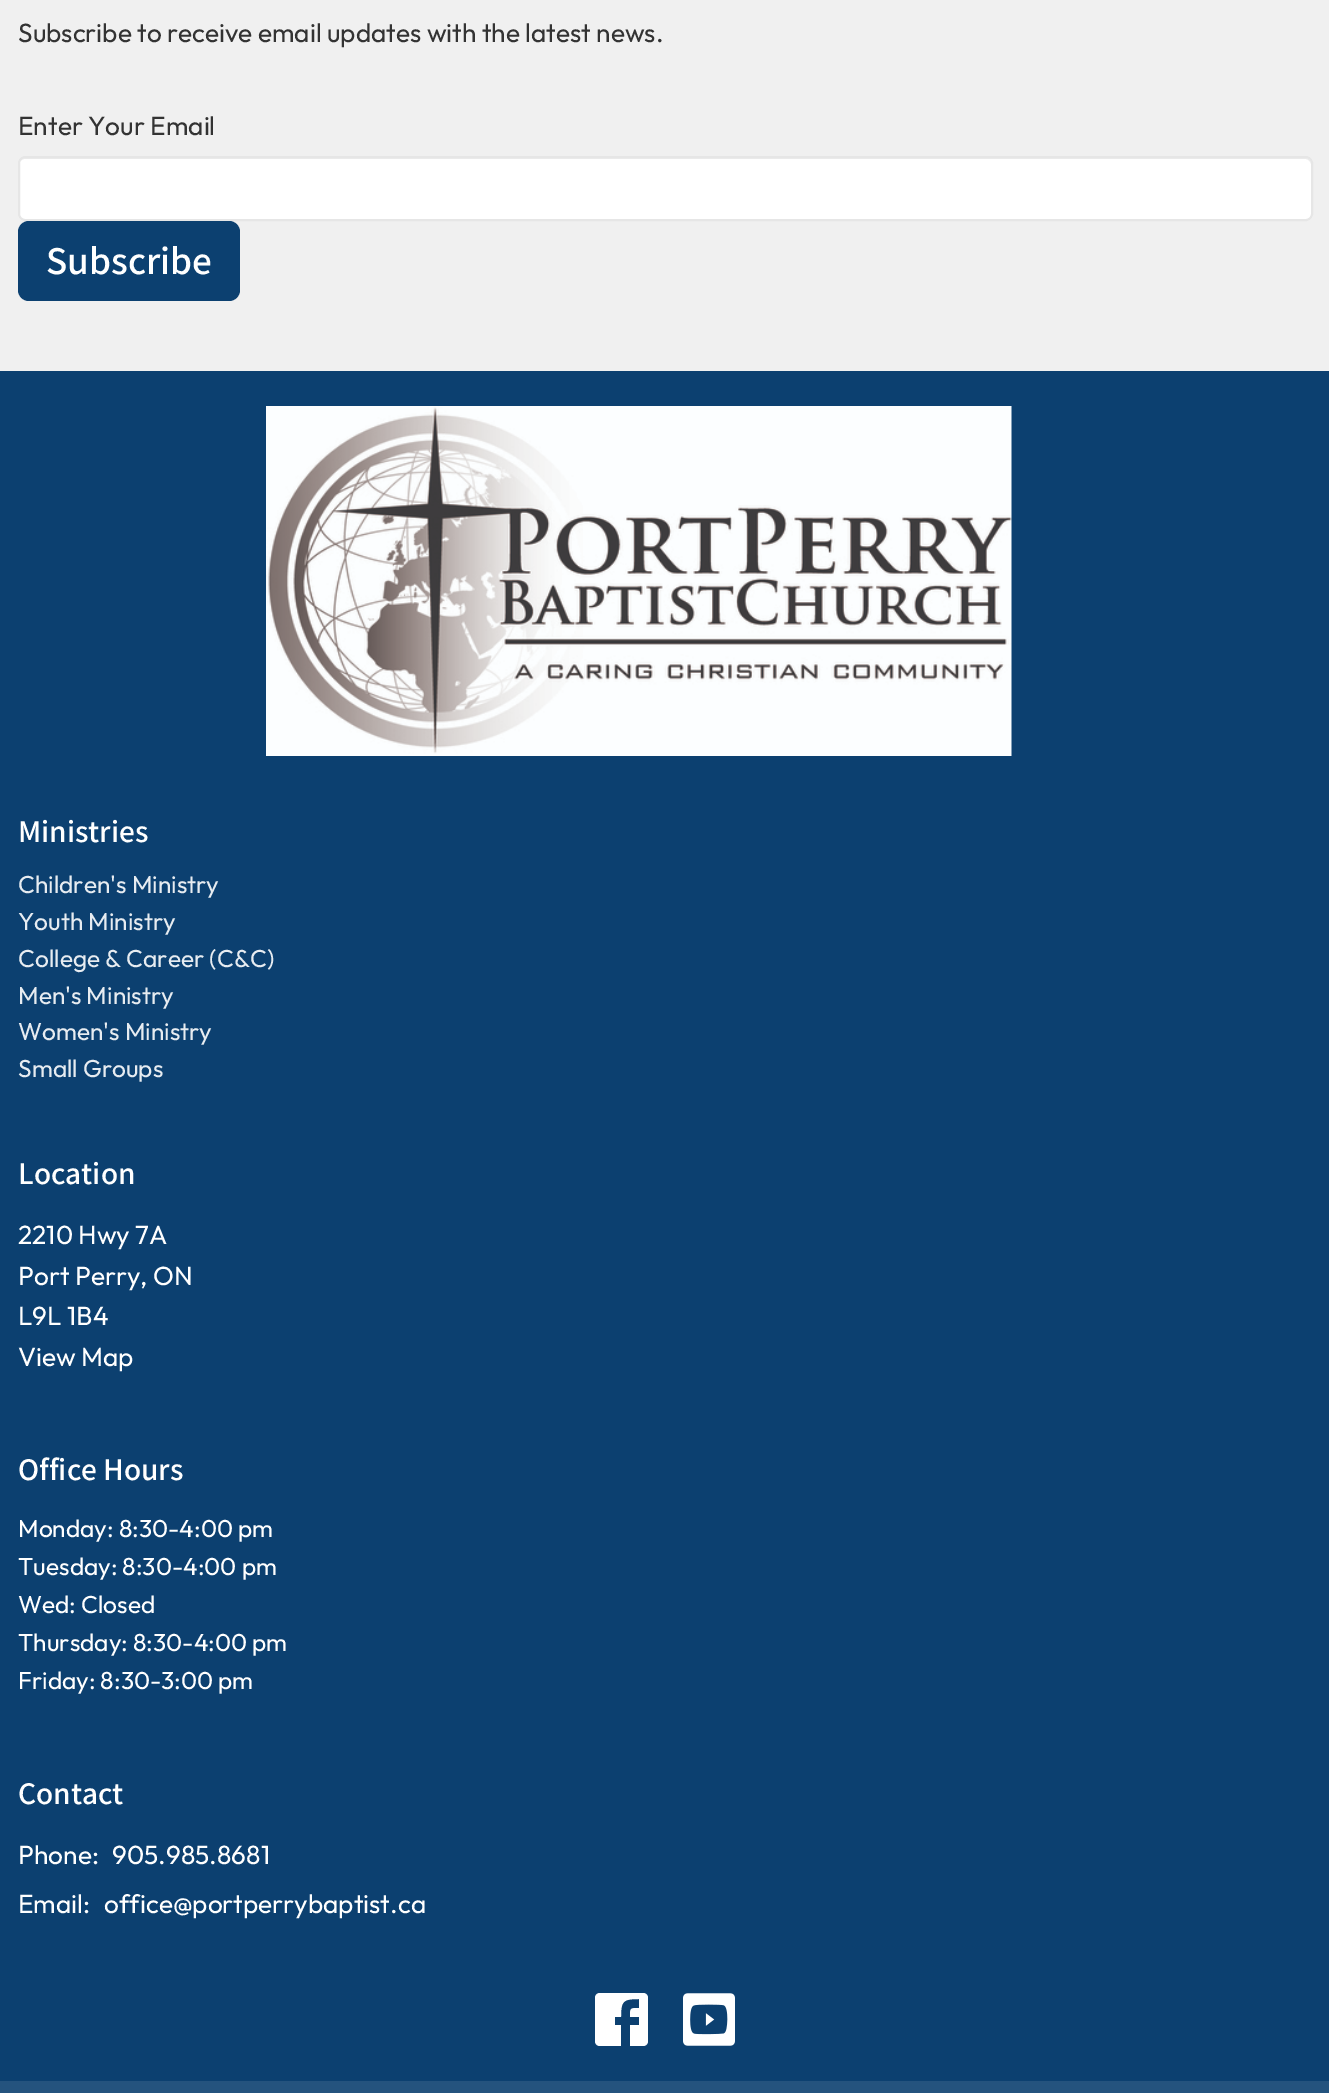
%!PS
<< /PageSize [1329 2093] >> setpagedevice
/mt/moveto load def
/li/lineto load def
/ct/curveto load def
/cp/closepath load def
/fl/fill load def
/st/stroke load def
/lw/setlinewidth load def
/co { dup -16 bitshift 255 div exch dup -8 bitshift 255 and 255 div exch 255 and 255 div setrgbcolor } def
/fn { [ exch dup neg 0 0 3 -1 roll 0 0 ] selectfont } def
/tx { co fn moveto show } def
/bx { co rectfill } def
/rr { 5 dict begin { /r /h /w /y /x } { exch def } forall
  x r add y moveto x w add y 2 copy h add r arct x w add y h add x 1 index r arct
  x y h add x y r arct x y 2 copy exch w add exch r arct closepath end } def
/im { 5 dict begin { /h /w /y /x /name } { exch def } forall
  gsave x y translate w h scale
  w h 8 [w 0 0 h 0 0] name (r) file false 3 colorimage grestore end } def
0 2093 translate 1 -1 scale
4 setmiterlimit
0 0 1329 2093 16#F0F0F0 bx
16#FFFFFF co
18 156 1295 65 7 rr fl
16#ECECEC co
24 159 mt 1306 159 li 1308 159 1311 162 1311 164 ct 1311 161 1309 158 1306 158 ct 24 158 li 21 158 19 161 19 164 ct 19 162 22 159 24 159 ct cp fl
16#E6E6E6 co
2 lw
19 157 1293 63 6 rr st
16#0C4070 co
18 221 222 80 11 rr fl
0 371 1329 1710 16#0C4070 bx
(media/1.raw) 266 406 746 350 im
16#FFFFFF co
639 1999 mt 639 2008 li 630 2008 630 2008 630 2017 ct 639 2017 li 639 2025 li 630 2025 li 630 2046 li 643 2046 li 646 2046 648 2044 648 2041 ct 648 1998 li 648 1995 646 1993 643 1993 ct 600 1993 li 597 1993 595 1995 595 1998 ct 595 2041 li 595 2044 597 2046 600 2046 ct 621 2046 li 621 2025 li 615 2025 li 615 2017 li 621 2017 li 621 2001 623 1999 639 1999 ct cp fl
(media/2.raw) 683 1993 52 53 im
0 2081 1329 12 16#24537E bx
(Subscribe to receive email updates with the latest news.) 18 42 /Outfit-Regular 26.25 16#333333 tx
(Enter Your Email) 18 135 /Outfit-Regular 26.25 16#333333 tx
(Subscribe) 46 274 /NotoSansTC-Medium 35 16#FFFFFF tx
(Ministries) 18 842 /NotoSansTC-Medium 28 16#FFFFFF tx
(Children's Ministry) 18 893 /Outfit-Regular 24.5 16#E7ECF1 tx
(Youth Ministry) 18 930 /Outfit-Regular 24.5 16#E7ECF1 tx
(College & Career \(C&C\)) 18 967 /Outfit-Regular 24.5 16#E7ECF1 tx
(Men's Ministry) 18 1004 /Outfit-Regular 24.5 16#E7ECF1 tx
(Women's Ministry) 18 1040 /Outfit-Regular 24.5 16#E7ECF1 tx
(Small Groups) 18 1077 /Outfit-Regular 24.5 16#E7ECF1 tx
(Location) 18 1184 /NotoSansTC-Medium 28 16#FFFFFF tx
(2210 Hwy 7A) 18 1244 /Outfit-Regular 26.25 16#FFFFFF tx
(Port Perry, ON) 18 1285 /Outfit-Regular 26.25 16#FFFFFF tx
(L9L 1B4) 18 1325 /Outfit-Regular 26.25 16#FFFFFF tx
(View Map) 18 1366 /Outfit-Regular 26.25 16#FFFFFF tx
(Office Hours) 18 1480 /NotoSansTC-Medium 28 16#FFFFFF tx
(Monday: 8:30-4:00 pm) 18 1537 /Outfit-Regular 24.5 16#FFFFFF tx
(Tuesday: 8:30-4:00 pm) 18 1575 /Outfit-Regular 24.5 16#FFFFFF tx
(Wed: Closed) 18 1613 /Outfit-Regular 24.5 16#FFFFFF tx
(Thursday: 8:30-4:00 pm) 18 1651 /Outfit-Regular 24.5 16#FFFFFF tx
(Friday: 8:30-3:00 pm) 18 1689 /Outfit-Regular 24.5 16#FFFFFF tx
(Contact) 18 1804 /NotoSansTC-Medium 28 16#FFFFFF tx
(Phone:) 18 1864 /Outfit-Regular 26.25 16#FFFFFF tx
(905.985.8681) 112 1864 /Outfit-Regular 26.25 16#FFFFFF tx
(Email:) 18 1913 /Outfit-Regular 26.25 16#FFFFFF tx
(office@portperrybaptist.ca) 104 1913 /Outfit-Regular 26.25 16#FFFFFF tx
showpage
